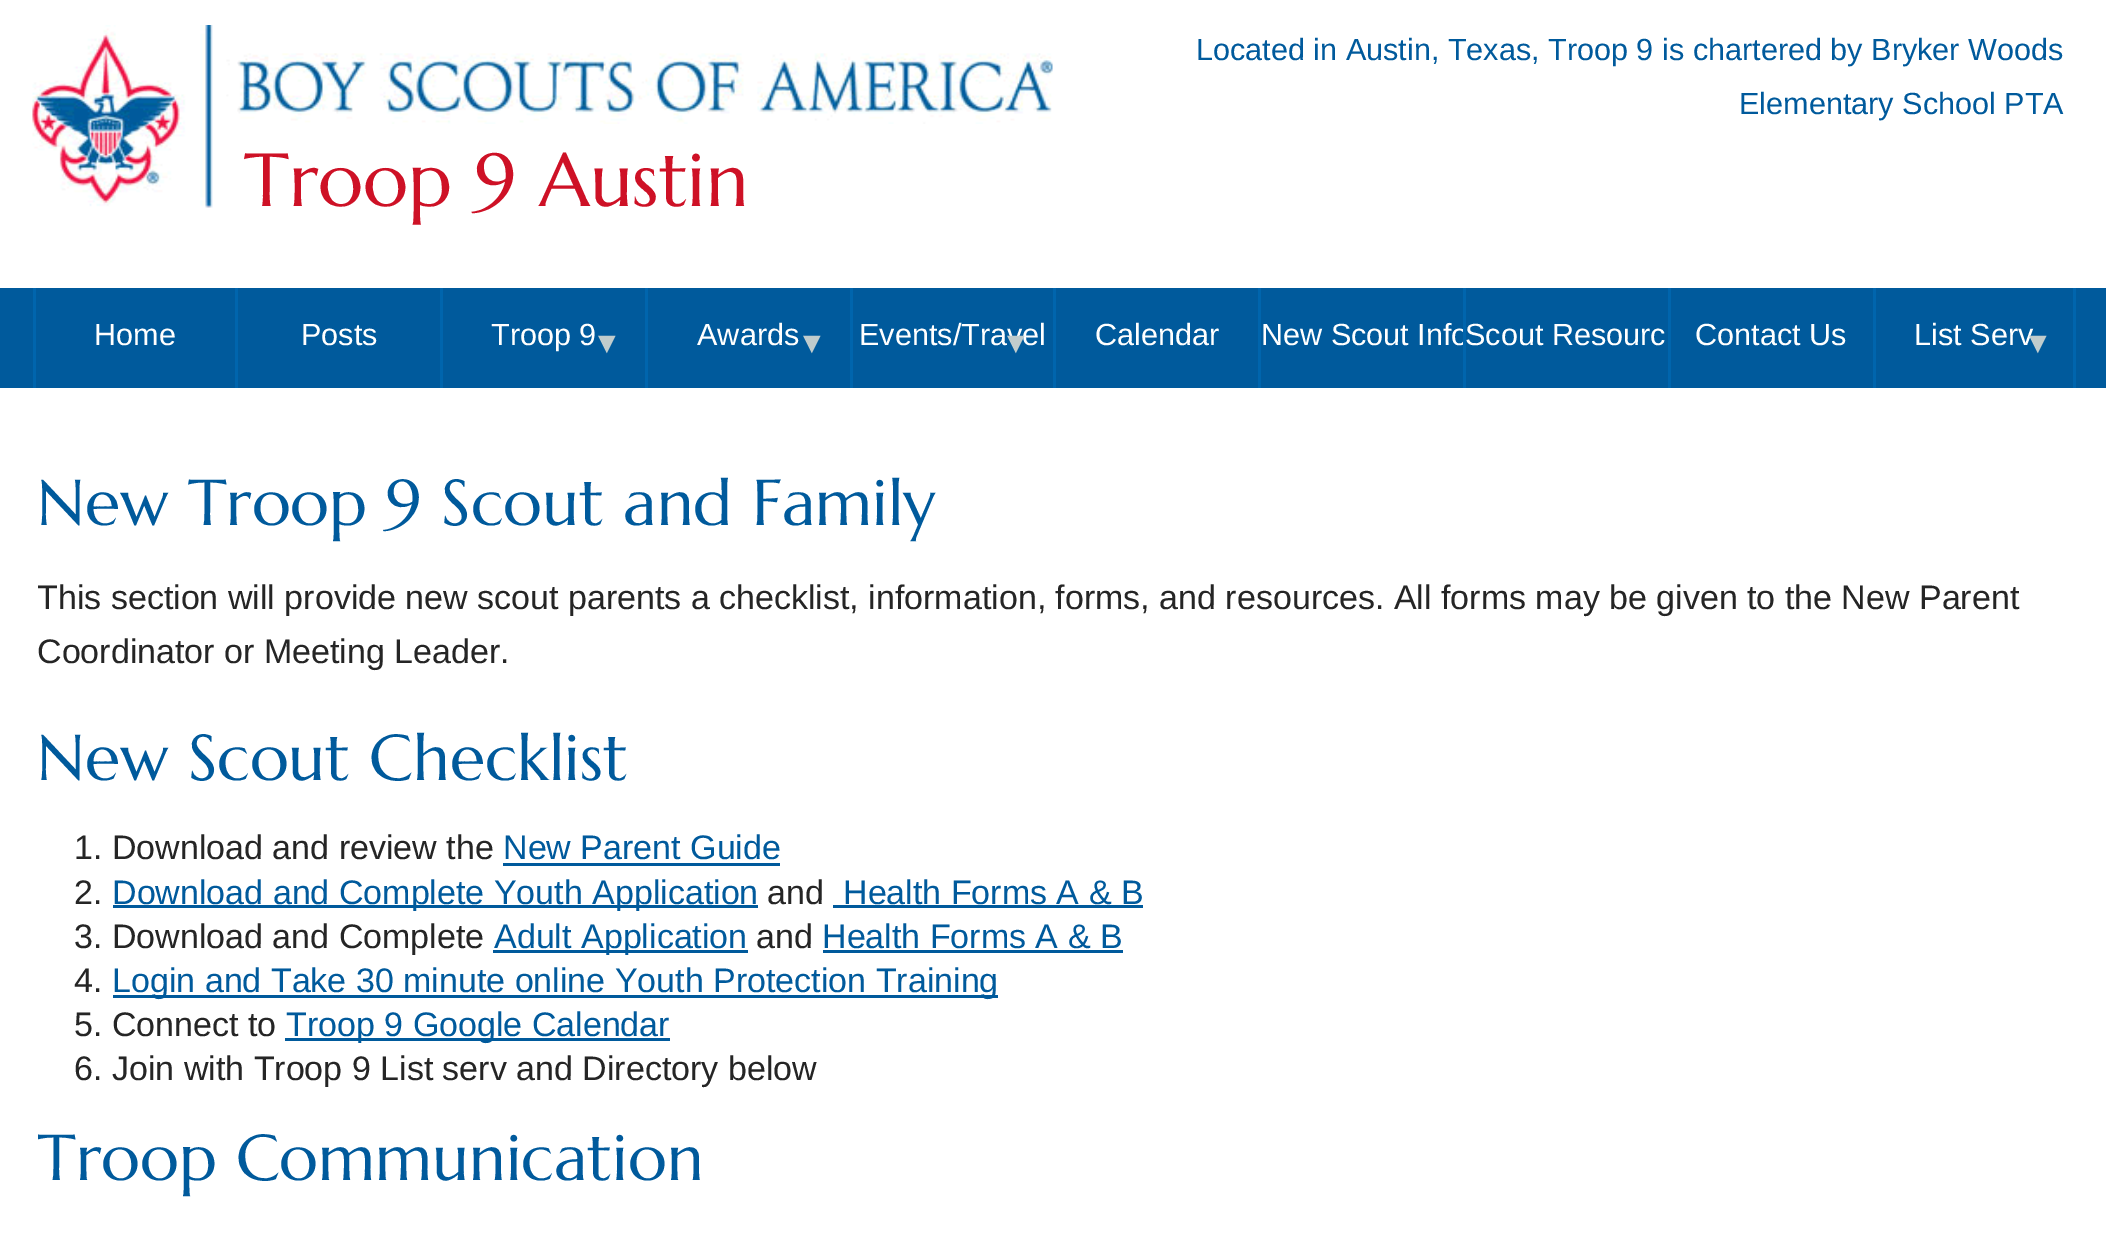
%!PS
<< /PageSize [2106 1238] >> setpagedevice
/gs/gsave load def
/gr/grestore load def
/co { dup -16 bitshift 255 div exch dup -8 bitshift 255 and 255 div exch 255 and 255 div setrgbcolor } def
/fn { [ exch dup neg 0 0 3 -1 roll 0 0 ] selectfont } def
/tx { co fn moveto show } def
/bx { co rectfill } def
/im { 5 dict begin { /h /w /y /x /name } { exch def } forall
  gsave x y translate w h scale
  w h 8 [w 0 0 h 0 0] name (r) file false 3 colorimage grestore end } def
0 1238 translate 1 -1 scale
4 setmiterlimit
0 0 2106 1238 16#FFFFFF bx
(media/1.raw) 32 25 198 183 im
(media/2.raw) 237 53 816 71 im
0 288 2106 100 16#005A9C bx
33 288 3 100 16#0065AD bx
235 288 3 100 16#0065AD bx
440 288 3 100 16#0065AD bx
645 288 3 100 16#0065AD bx
850 288 3 100 16#0065AD bx
1053 288 3 100 16#0065AD bx
1258 288 3 100 16#0065AD bx
1668 288 3 100 16#0065AD bx
2073 288 3 100 16#0065AD bx
1873 288 3 100 16#0065AD bx
503 863 277 3 16#005A9C bx
113 905 645 3 16#005A9C bx
833 905 310 3 16#005A9C bx
493 950 255 3 16#005A9C bx
823 950 300 3 16#005A9C bx
113 995 885 3 16#005A9C bx
285 1038 385 3 16#005A9C bx
(Located in Austin, Texas, Troop 9 is chartered by Bryker Woods) 1196 60 /LiberationSans-Regular 30.6 16#005A9C tx
(Elementary School PTA) 1739 114 /LiberationSans-Regular 30.6 16#005A9C tx
(Troop 9 Austin) 244 206 /Marcellus-Regular 75 16#CE1126 tx
(Home) 94 345 /LiberationSans-Regular 30.6 16#FFFFFF tx
(Posts) 301 345 /LiberationSans-Regular 30.6 16#FFFFFF tx
(Troop 9) 491 345 /LiberationSans-Regular 30.6 16#FFFFFF tx
(▼) 592 353 /LiberationSans-Regular 30 16#C0CCCD tx
(Awards) 697 345 /LiberationSans-Regular 30.6 16#FFFFFF tx
(▼) 797 353 /LiberationSans-Regular 30 16#C0CCCD tx
(Events/Travel) 859 345 /LiberationSans-Regular 30.6 16#FFFFFF tx
(▼) 1001 353 /LiberationSans-Regular 30 16#C0CCCD tx
(Calendar) 1095 345 /LiberationSans-Regular 30.6 16#FFFFFF tx
(New Scout Info) 1261 345 /LiberationSans-Regular 30.6 16#FFFFFF tx
1466 332 1 10 16#005A9C bx
1463 288 3 100 16#0065AD bx
(Scout Resourc) 1465 345 /LiberationSans-Regular 30.6 16#FFFFFF tx
(Contact Us) 1695 345 /LiberationSans-Regular 30.6 16#FFFFFF tx
(List Serv) 1914 345 /LiberationSans-Regular 30.6 16#FFFFFF tx
(▼) 2023 353 /LiberationSans-Regular 30 16#C0CCCD tx
(New Troop 9 Scout and Family) 37 525 /Marcellus-Regular 64.6 16#005A9C tx
gs
38 463 2032 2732 rectclip
(This section will provide new scout parents a checklist, information, forms, and resources. All forms may be given to the New Parent) 37 609 /LiberationSans-Regular 34 16#252525 tx
gr
(Coordinator or Meeting Leader.) 37 663 /LiberationSans-Regular 34 16#252525 tx
(New Scout Checklist) 37 780 /Marcellus-Regular 64.6 16#005A9C tx
(1. Download and review the) 74 859 /LiberationSans-Regular 34 16#252525 tx
(New Parent Guide) 503 859 /LiberationSans-Regular 34 16#005A9C tx
(2.) 74 904 /LiberationSans-Regular 34 16#252525 tx
(Download and Complete Youth Application) 112 904 /LiberationSans-Regular 34 16#005A9C tx
(and) 767 904 /LiberationSans-Regular 34 16#252525 tx
(Health Forms A & B) 843 904 /LiberationSans-Regular 34 16#005A9C tx
(3. Download and Complete) 74 948 /LiberationSans-Regular 34 16#252525 tx
(Adult Application) 494 948 /LiberationSans-Regular 34 16#005A9C tx
(and) 756 948 /LiberationSans-Regular 34 16#252525 tx
(Health Forms A & B) 822 948 /LiberationSans-Regular 34 16#005A9C tx
(4.) 74 992 /LiberationSans-Regular 34 16#252525 tx
(Login and Take 30 minute online Youth Protection Training) 112 992 /LiberationSans-Regular 34 16#005A9C tx
(5. Connect to) 74 1036 /LiberationSans-Regular 34 16#252525 tx
(Troop 9 Google Calendar) 286 1036 /LiberationSans-Regular 34 16#005A9C tx
(6. Join with Troop 9 List serv and Directory below) 74 1080 /LiberationSans-Regular 34 16#252525 tx
gs
38 463 2032 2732 rectclip
(Troop Communication) 37 1180 /Marcellus-Regular 64.6 16#005A9C tx
gr
showpage
